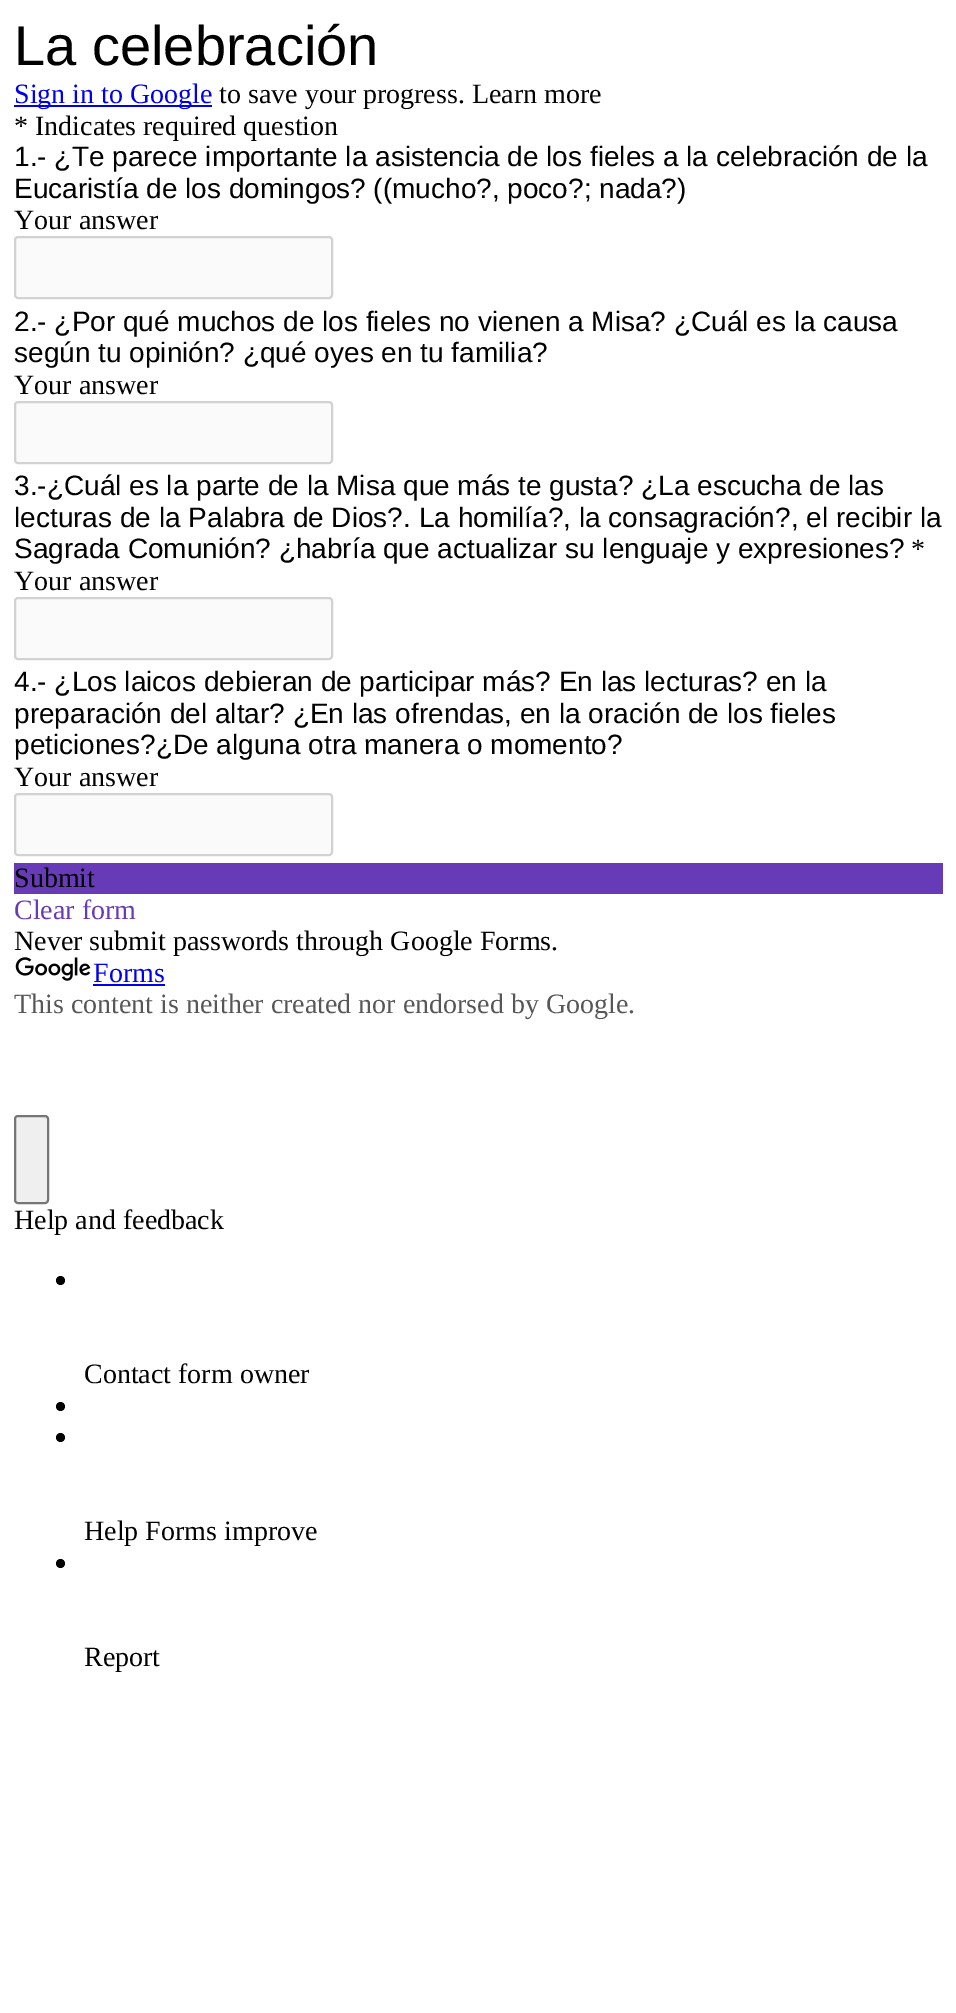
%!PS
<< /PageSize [956 2013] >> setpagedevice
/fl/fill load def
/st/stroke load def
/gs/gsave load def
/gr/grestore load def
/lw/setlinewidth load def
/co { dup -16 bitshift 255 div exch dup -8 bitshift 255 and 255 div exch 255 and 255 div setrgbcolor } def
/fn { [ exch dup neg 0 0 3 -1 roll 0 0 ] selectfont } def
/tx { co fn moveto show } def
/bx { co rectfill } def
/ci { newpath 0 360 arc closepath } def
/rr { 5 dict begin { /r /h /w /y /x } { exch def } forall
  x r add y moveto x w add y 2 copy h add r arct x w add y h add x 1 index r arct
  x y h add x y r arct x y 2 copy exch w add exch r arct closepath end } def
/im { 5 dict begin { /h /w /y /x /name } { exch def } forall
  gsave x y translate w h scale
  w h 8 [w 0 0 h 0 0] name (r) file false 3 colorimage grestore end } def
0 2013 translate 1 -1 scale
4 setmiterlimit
0 0 956 2013 16#FFFFFF bx
14 105 198 2 16#0000EE bx
16#FAFAFA co
15 237 317 61 3 rr gs fl gr
16#D2D2D2 co
2 lw
st
16#FAFAFA co
15 402 317 61 3 rr gs fl gr
16#D2D2D2 co
st
16#FAFAFA co
15 598 317 61 3 rr gs fl gr
16#D2D2D2 co
st
16#FAFAFA co
15 794 317 61 3 rr gs fl gr
16#D2D2D2 co
st
14 863 929 31 16#673AB7 bx
(media/1.raw) 15 957 76 24 im
93 984 72 2 16#0000EE bx
16#EFEFEF co
15 1116 33 87 3 rr gs fl gr
16#767676 co
st
16#000000 co
60.5 1280.5 4.5 ci fl
60.5 1406.5 4.5 ci fl
60.5 1437.5 4.5 ci fl
60.5 1563.5 4.5 ci fl
(La celebración) 14 65 /LiberationSans-Regular 56 16#000000 tx
(Sign in to Google) 14 103 /LiberationSerif-Regular 28 16#0000EE tx
(to save your progress. Learn more) 219 103 /LiberationSerif-Regular 28 16#000000 tx
(* Indicates required question) 14 135 /LiberationSerif-Regular 28 16#000000 tx
(1.- ¿Te parece importante la asistencia de los fieles a la celebración de la) 14 166 /LiberationSans-Regular 28 16#000000 tx
(Eucaristía de los domingos? \(\(mucho?, poco?; nada?\)) 14 198 /LiberationSans-Regular 28 16#000000 tx
(Your answer) 14 229 /LiberationSerif-Regular 28 16#000000 tx
(2.- ¿Por qué muchos de los fieles no vienen a Misa? ¿Cuál es la causa) 14 331 /LiberationSans-Regular 28 16#000000 tx
(según tu opinión? ¿qué oyes en tu familia?) 14 362 /LiberationSans-Regular 28 16#000000 tx
(Your answer) 14 394 /LiberationSerif-Regular 28 16#000000 tx
(3.-¿Cuál es la parte de la Misa que más te gusta? ¿La escucha de las) 14 495 /LiberationSans-Regular 28 16#000000 tx
(lecturas de la Palabra de Dios?. La homilía?, la consagración?, el recibir la) 14 527 /LiberationSans-Regular 28 16#000000 tx
(Sagrada Comunión? ¿habría que actualizar su lenguaje y expresiones?) 14 558 /LiberationSans-Regular 28 16#000000 tx
(*) 911 558 /LiberationSerif-Regular 28 16#000000 tx
(Your answer) 14 590 /LiberationSerif-Regular 28 16#000000 tx
(4.- ¿Los laicos debieran de participar más? En las lecturas? en la) 14 691 /LiberationSans-Regular 28 16#000000 tx
(preparación del altar? ¿En las ofrendas, en la oración de los fieles) 14 723 /LiberationSans-Regular 28 16#000000 tx
(peticiones?¿De alguna otra manera o momento?) 14 754 /LiberationSans-Regular 28 16#000000 tx
(Your answer) 14 786 /LiberationSerif-Regular 28 16#000000 tx
(Submit) 14 887 /LiberationSerif-Regular 28 16#000000 tx
(Clear form) 14 919 /LiberationSerif-Regular 28 16#673AB7 tx
(Never submit passwords through Google Forms.) 14 950 /LiberationSerif-Regular 28 16#000000 tx
(Forms) 93 982 /LiberationSerif-Regular 28 16#0000EE tx
(This content is neither created nor endorsed by Google.) 14 1013 /LiberationSerif-Regular 28 16#575757 tx
(Help and feedback) 14 1229 /LiberationSerif-Regular 28 16#000000 tx
(Contact form owner) 84 1383 /LiberationSerif-Regular 28 16#000000 tx
(Help Forms improve) 84 1540 /LiberationSerif-Regular 28 16#000000 tx
(Report) 84 1666 /LiberationSerif-Regular 28 16#000000 tx
showpage
